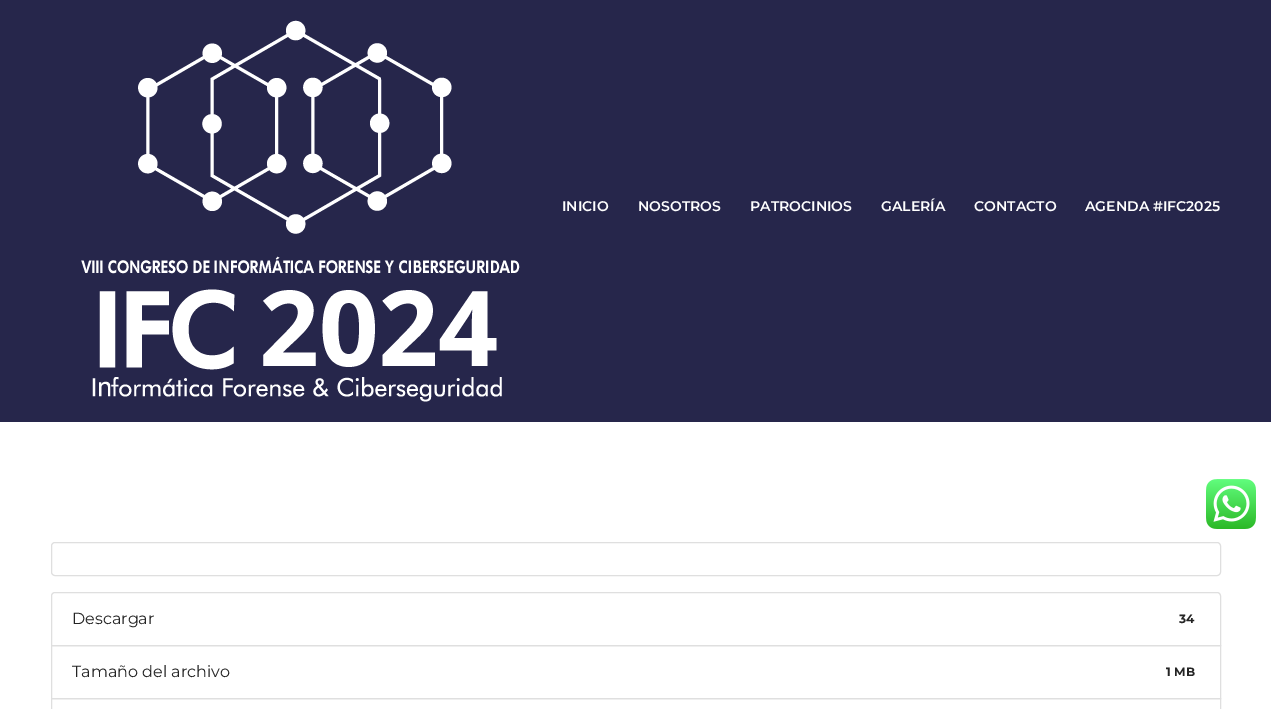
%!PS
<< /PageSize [1271 709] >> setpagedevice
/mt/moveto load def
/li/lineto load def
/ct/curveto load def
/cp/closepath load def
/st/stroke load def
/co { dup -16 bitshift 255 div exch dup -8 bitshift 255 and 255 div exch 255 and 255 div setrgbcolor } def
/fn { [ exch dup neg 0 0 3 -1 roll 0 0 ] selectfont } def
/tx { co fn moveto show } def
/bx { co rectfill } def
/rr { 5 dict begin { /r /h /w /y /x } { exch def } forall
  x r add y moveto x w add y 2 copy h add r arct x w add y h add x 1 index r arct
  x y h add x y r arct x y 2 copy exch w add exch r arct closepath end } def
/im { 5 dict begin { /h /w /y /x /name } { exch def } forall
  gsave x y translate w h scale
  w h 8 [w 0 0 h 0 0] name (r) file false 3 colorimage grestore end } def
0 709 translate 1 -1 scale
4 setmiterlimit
0 0 1271 709 16#FFFFFF bx
0 0 1271 422 16#26264B bx
(media/1.raw) 81 20 439 382 im
16#DFDFDF co
51.5 542.5 1169 33 3.5 rr st
55 592.5 mt 1217 592.5 li 1219 592.5 1220.5 594 1220.5 596 ct 1220.5 645.5 li 51.5 645.5 li 51.5 596 li 51.5 594 53 592.5 55 592.5 ct cp st
51.5 645.5 1169 53 rectstroke
51.5 698.5 1169 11 rectstroke
(media/2.raw) 1206 479 50 50 im
(INICIO) 562 211 /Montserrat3-Thin 14 16#FFFFFF tx
(NOSOTROS) 638 211 /Montserrat3-Thin 14 16#FFFFFF tx
(PATROCINIOS) 750 211 /Montserrat3-Thin 14 16#FFFFFF tx
(GALERÍA) 881 211 /Montserrat3-Thin 14 16#FFFFFF tx
(CONTACTO) 974 211 /Montserrat3-Thin 14 16#FFFFFF tx
(AGENDA #IFC2025) 1085 211 /Montserrat3-Thin 14 16#FFFFFF tx
(Descargar) 72 624 /Montserrat-Thin 16 16#242424 tx
(34) 1179 623 /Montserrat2-Thin 12 16#242424 tx
(Tamaño del archivo) 72 677 /Montserrat-Thin 16 16#242424 tx
(1 MB) 1166 676 /Montserrat2-Thin 12 16#242424 tx
showpage
